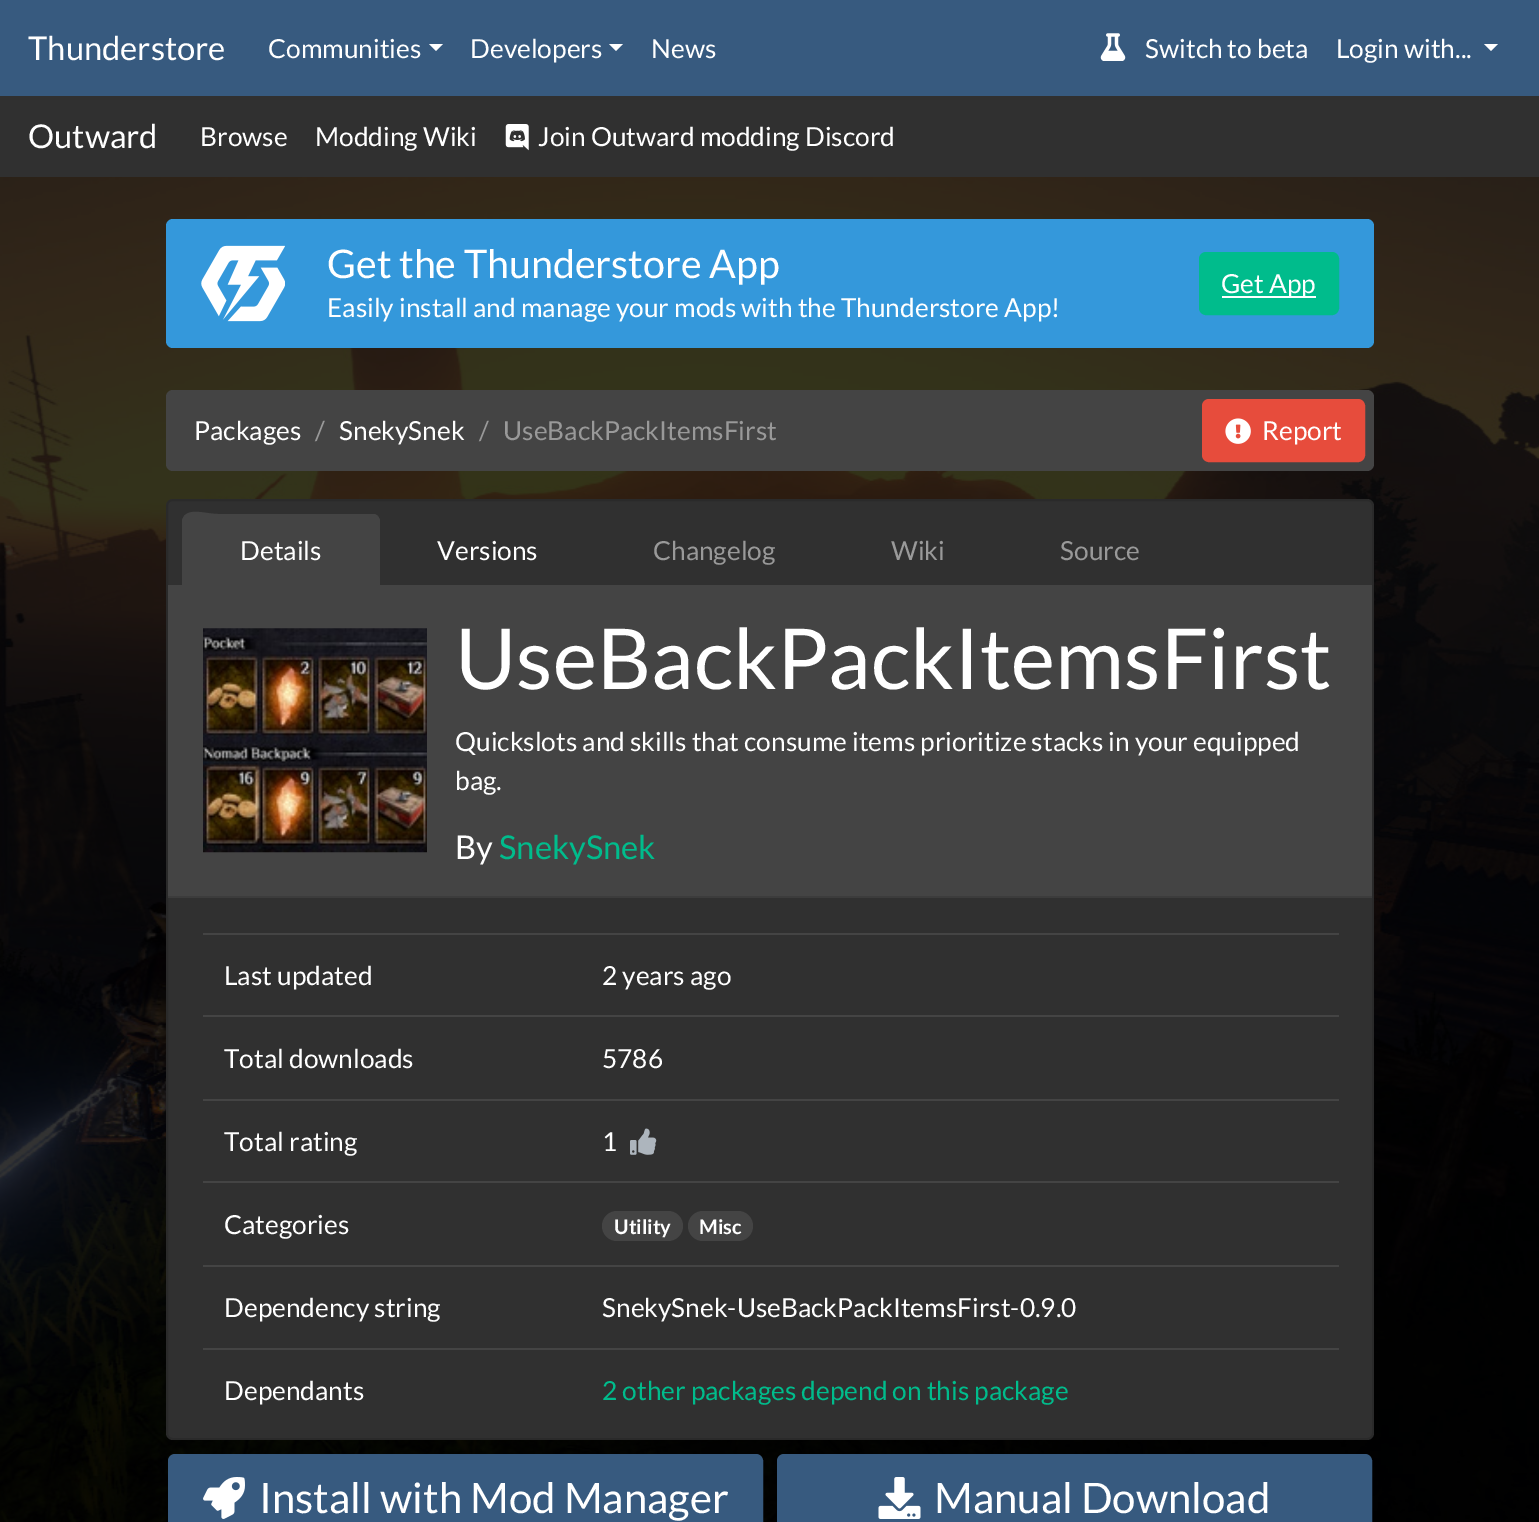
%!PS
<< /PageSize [1539 1522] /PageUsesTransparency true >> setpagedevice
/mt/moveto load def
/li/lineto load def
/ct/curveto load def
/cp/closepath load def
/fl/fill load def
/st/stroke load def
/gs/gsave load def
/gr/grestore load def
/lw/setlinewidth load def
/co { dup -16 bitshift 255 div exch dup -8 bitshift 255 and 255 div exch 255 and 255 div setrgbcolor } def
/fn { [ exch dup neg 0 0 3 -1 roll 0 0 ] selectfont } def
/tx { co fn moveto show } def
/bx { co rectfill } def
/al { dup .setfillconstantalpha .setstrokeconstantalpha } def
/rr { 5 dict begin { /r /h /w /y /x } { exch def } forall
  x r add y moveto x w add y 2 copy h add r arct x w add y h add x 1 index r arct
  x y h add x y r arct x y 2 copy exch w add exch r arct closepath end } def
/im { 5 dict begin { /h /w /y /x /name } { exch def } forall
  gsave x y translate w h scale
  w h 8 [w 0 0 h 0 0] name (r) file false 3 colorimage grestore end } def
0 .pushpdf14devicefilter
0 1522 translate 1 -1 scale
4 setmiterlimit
0 0 1539 1522 16#FFFFFF bx
0 0 1539 96 16#375A7F bx
16#FFFFFF co
429 44 mt 443 44 li 436 51 li cp fl
609 44 mt 623 44 li 616 51 li cp fl
(media/1.raw) 1100 33 26 28 im
1484 44 mt 1498 44 li 1491 51 li cp fl
0 96 1539 81 16#303030 bx
(media/2.raw) 505 124 24 27 im
(media/3.raw) 0 177 1539 1345 im
16#3498DB co
166 219 1208 129 7 rr fl
(media/4.raw) 201 245 84 77 im
16#00BC8C co
1200 253 138 61 6 rr gs fl gr
2 lw
st
1222 296 94 2 16#FFFFFF bx
16#444444 co
166 390 1208 81 7 rr fl
16#E74C3C co
1203 400 161 61 6 rr gs fl gr
st
(media/5.raw) 1225 418 26 26 im
16#303030 co
166 499 1208 941 7 rr fl
0.12 al
16#000000 co
167 500 1206 939 6 rr st
1 al
168 585 1204 311 16#444444 bx
189 515 mt 373 515 li 377 515 380 518 380 522 ct 380 586 li 182 586 li 182 522 li 182 518 185 515 189 515 ct cp fl
189 516 mt 188 516 186 517 185 518 ct 184 516 li 191 508 206 514 218 514 ct 375 514 li 378 516 li 377 518 li 376 517 374 516 373 516 ct cp fl
380 586 mt 378 584 li 378 522 li 378 520 377 519 377 518 ct 378 516 li 380 520 li cp fl
182 522 mt 182 586 li 184 584 li 184 522 li 184 520 184 519 185 518 ct 184 516 li 183 518 182 520 182 522 ct cp fl
168 896 1204 2 16#3C3C3C bx
(media/6.raw) 203 628 224 225 im
203 933 1136 2 16#444444 bx
203 1015 1136 2 16#444444 bx
203 1099 1136 2 16#444444 bx
(media/7.raw) 630 1128 27 27 im
203 1181 1136 2 16#444444 bx
602 1211 81 30 15 rr fl
688 1211 65 30 15 rr fl
203 1265 1136 2 16#444444 bx
203 1348 1136 2 16#444444 bx
16#375A7F co
169 1455 593 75 6 rr gs fl gr
st
(media/8.raw) 203 1477 42 42 im
778 1455 593 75 6 rr gs fl gr
st
(media/9.raw) 878 1477 43 42 im
(Thunderstore) 28 60 /Lato-Regular 32.75 16#FFFFFF tx
(Communities) 268 58 /Lato-Regular 26.25 16#FFFFFF tx
(Developers) 470 58 /Lato-Regular 26.25 16#FFFFFF tx
(News) 651 58 /Lato-Regular 26.25 16#FFFFFF tx
(Switch to beta) 1145 58 /Lato-Regular 26.25 16#FFFFFF tx
(Login with...) 1336 58 /Lato-Regular 26.25 16#FFFFFF tx
(Outward) 28 148 /Lato-Regular 32.75 16#FFFFFF tx
(Browse) 200 146 /Lato-Regular 26.25 16#FFFFFF tx
(Modding Wiki) 315 146 /Lato-Regular 26.25 16#FFFFFF tx
(Join Outward modding Discord) 538 146 /Lato-Regular 26.25 16#FFFFFF tx
(Get the Thunderstore App) 327 278 /Lato-Regular 39.4 16#FFFFFF tx
(Easily install and manage your mods with the Thunderstore App!) 327 317 /Lato-Regular 26.25 16#FFFFFF tx
(Get App) 1221 293 /Lato-Regular 26.25 16#FFFFFF tx
(Packages) 194 440 /Lato-Regular 26.25 16#FFFFFF tx
(/) 315 440 /Lato-Regular 26.25 16#999999 tx
(SnekySnek) 339 440 /Lato-Regular 26.25 16#FFFFFF tx
(/) 479 440 /Lato-Regular 26.25 16#999999 tx
(UseBackPackItemsFirst) 503 440 /Lato-Regular 26.25 16#999999 tx
(Report) 1262 440 /Lato-Regular 26.25 16#FFFFFF tx
(Details) 240 560 /Lato-Regular 26.25 16#FFFFFF tx
(Versions) 437 560 /Lato-Regular 26.25 16#FFFFFF tx
(Changelog) 653 560 /Lato-Regular 26.25 16#999999 tx
(Wiki) 891 560 /Lato-Regular 26.25 16#999999 tx
(Source) 1060 560 /Lato-Regular 26.25 16#999999 tx
(UseBackPackItemsFirst) 455 689 /Lato-Regular 84 16#FFFFFF tx
(Quickslots and skills that consume items prioritize stacks in your equipped) 455 751 /Lato-Regular 26.25 16#FFFFFF tx
(bag.) 455 790 /Lato-Regular 26.25 16#FFFFFF tx
(By) 455 859 /Lato-Regular 32.75 16#FFFFFF tx
(SnekySnek) 499 859 /Lato-Regular 32.75 16#00BC8C tx
(Last updated) 224 985 /Lato-Regular 26.25 16#FFFFFF tx
(2 years ago) 602 985 /Lato-Regular 26.25 16#FFFFFF tx
(Total downloads) 224 1068 /Lato-Regular 26.25 16#FFFFFF tx
(5786) 602 1068 /Lato-Regular 26.25 16#FFFFFF tx
(Total rating) 224 1151 /Lato-Regular 26.25 16#FFFFFF tx
(1) 602 1151 /Lato-Regular 26.25 16#FFFFFF tx
(Categories) 224 1234 /Lato-Regular 26.25 16#FFFFFF tx
(Utility) 614 1234 /Lato-Bold 20 16#FFFFFF tx
(Misc) 699 1234 /Lato-Bold 20 16#FFFFFF tx
(Dependency string) 224 1317 /Lato-Regular 26.25 16#FFFFFF tx
(SnekySnek-UseBackPackItemsFirst-0.9.0) 602 1317 /Lato-Regular 26.25 16#FFFFFF tx
(Dependants) 224 1400 /Lato-Regular 26.25 16#FFFFFF tx
(2 other packages depend on this package) 602 1400 /Lato-Regular 26.25 16#00BC8C tx
(Install with Mod Manager) 259 1513 /Lato-Regular 42 16#FFFFFF tx
(Manual Download) 934 1513 /Lato-Regular 42 16#FFFFFF tx
.poppdf14devicefilter showpage
